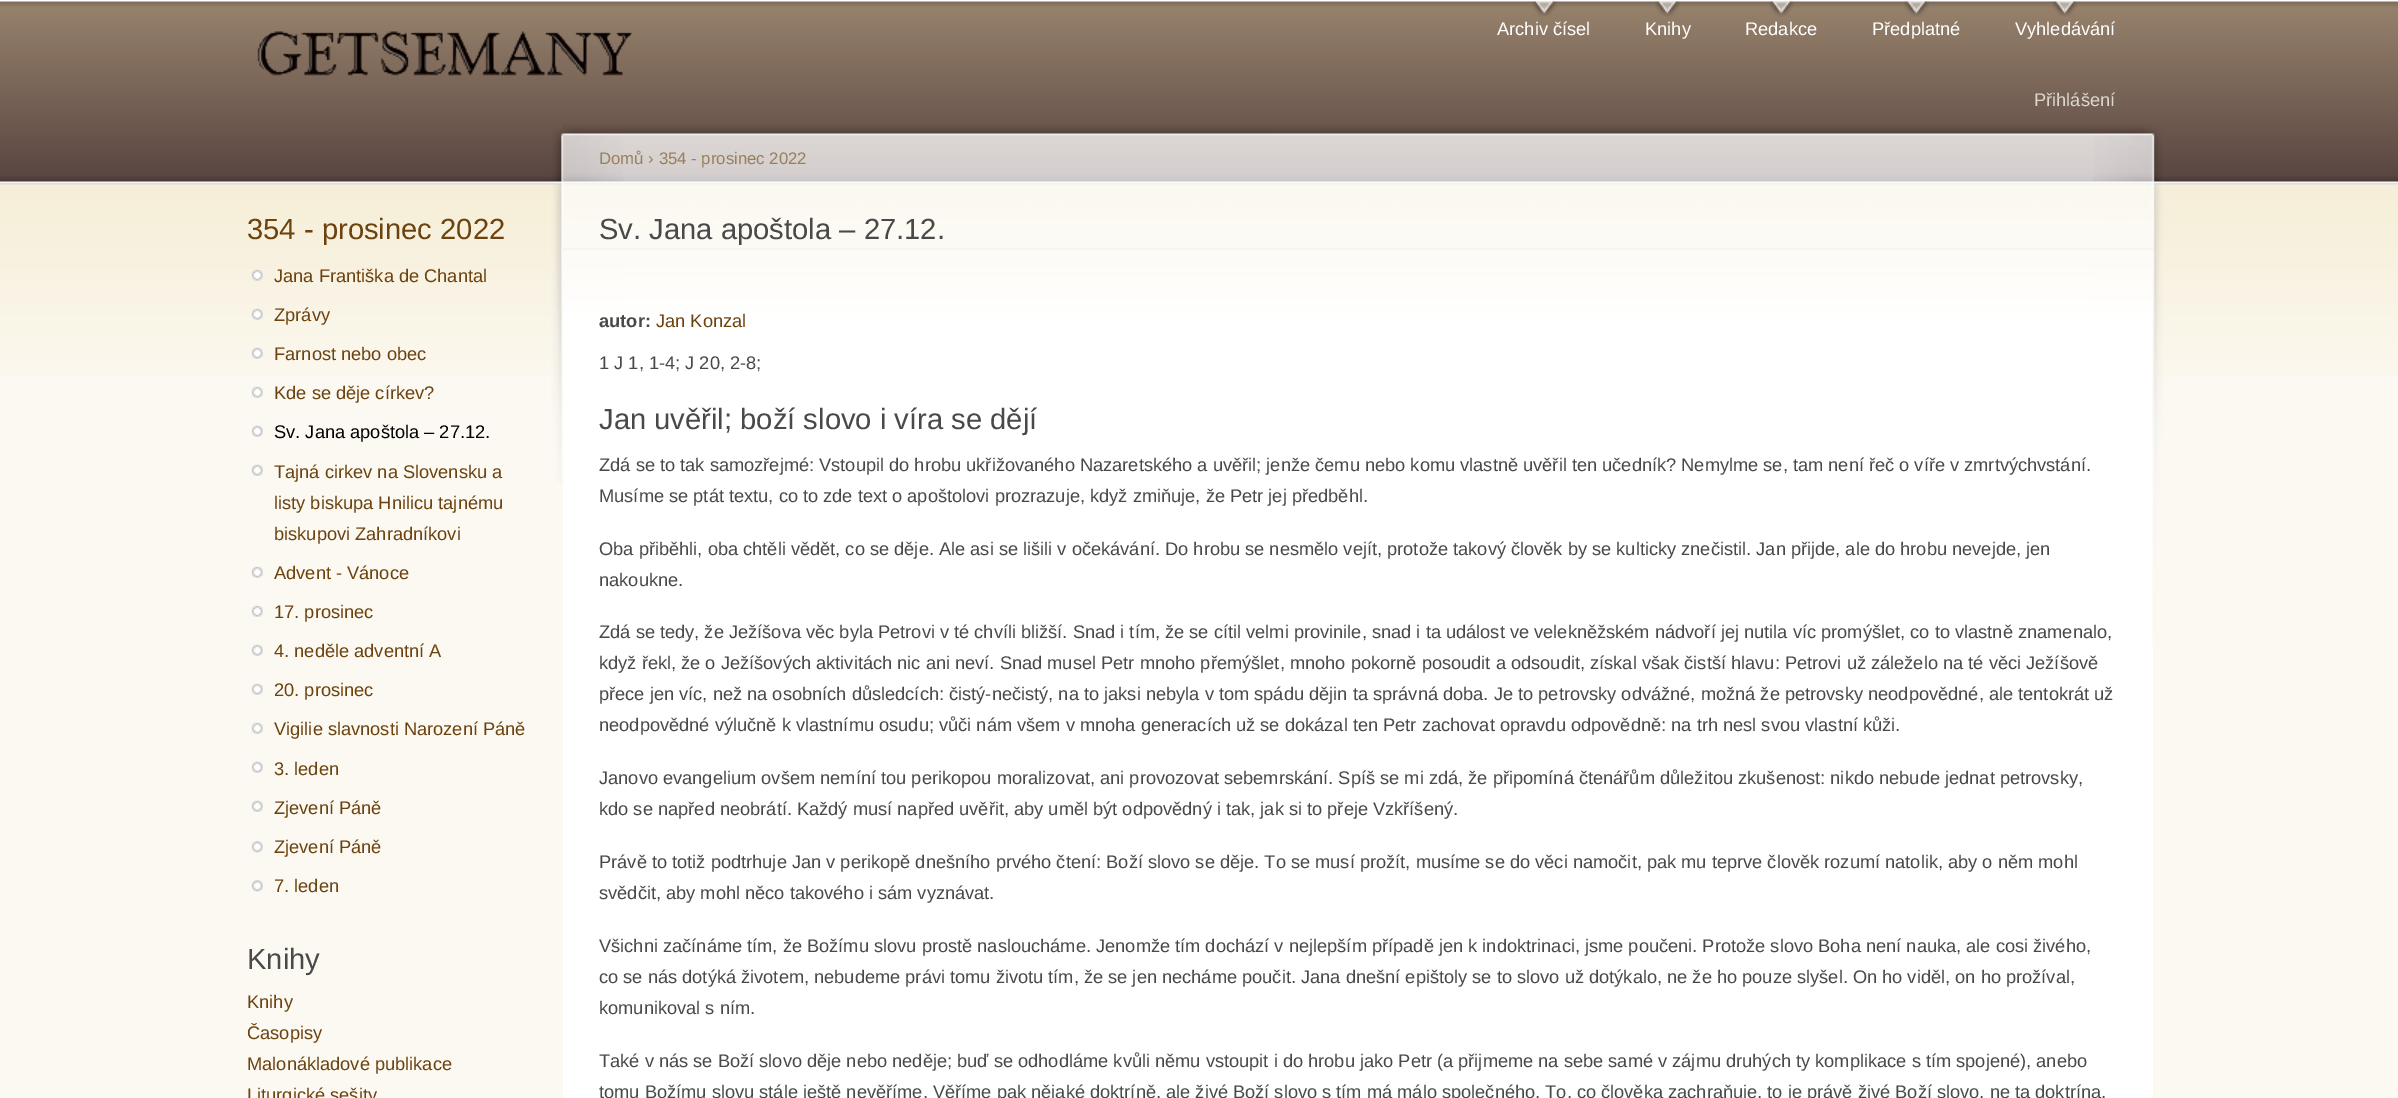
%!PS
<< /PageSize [2398 1098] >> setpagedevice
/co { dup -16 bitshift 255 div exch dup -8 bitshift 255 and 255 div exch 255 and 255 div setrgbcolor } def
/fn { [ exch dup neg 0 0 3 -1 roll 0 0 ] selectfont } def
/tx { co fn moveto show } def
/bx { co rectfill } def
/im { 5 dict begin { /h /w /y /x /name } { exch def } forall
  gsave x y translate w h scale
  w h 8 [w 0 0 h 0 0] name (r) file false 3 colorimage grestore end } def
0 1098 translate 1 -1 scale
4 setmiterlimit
0 0 2398 1098 16#FBF9F2 bx
(media/1.raw) 0 0 2398 376 im
(media/2.raw) 257 31 375 45 im
(media/3.raw) 1532 1 25 16 im
(media/3.raw) 1655 1 25 16 im
(media/3.raw) 1769 1 25 16 im
(media/4.raw) 1904 1 25 16 im
(media/5.raw) 2052 1 25 16 im
(media/6.raw) 251 269 12 12 im
(media/7.raw) 251 308 12 12 im
(media/8.raw) 251 347 12 12 im
(media/9.raw) 251 386 12 12 im
(media/9.raw) 251 425 12 12 im
(media/9.raw) 251 464 12 12 im
(media/9.raw) 251 566 12 12 im
(media/9.raw) 251 605 12 12 im
(media/9.raw) 251 644 12 12 im
(media/9.raw) 251 683 12 12 im
(media/9.raw) 251 722 12 12 im
(media/9.raw) 251 761 12 12 im
(media/9.raw) 251 800 12 12 im
(media/10.raw) 251 841 12 12 im
(media/10.raw) 251 880 12 12 im
563 420 1590 678 16#FFFFFF bx
(media/11.raw) 562 120 1531 300 im
(media/12.raw) 2093 120 71 528 im
(media/13.raw) 551 128 72 354 im
561 248 1593 2 16#F7F5EE bx
(Archiv čísel) 1497 35 /LiberationSans-Regular 18.25 16#FFFFFF tx
(Knihy) 1645 35 /LiberationSans-Regular 18.25 16#FFFFFF tx
(Redakce) 1745 35 /LiberationSans-Regular 18.25 16#FFFFFF tx
(Předplatné) 1872 35 /LiberationSans-Regular 18.25 16#FFFFFF tx
(Vyhledávání) 2015 35 /LiberationSans-Regular 18.25 16#FFFFFF tx
(Přihlášení) 2034 106 /LiberationSans-Regular 18.25 16#DDD7D0 tx
(354 - prosinec 2022) 247 239 /LiberationSans-Regular 29.2 16#6C420E tx
(Jana Františka de Chantal) 274 282 /LiberationSans-Regular 18.25 16#6C420E tx
(Zprávy) 274 321 /LiberationSans-Regular 18.25 16#6C420E tx
(Farnost nebo obec) 274 360 /LiberationSans-Regular 18.25 16#6C420E tx
(Kde se děje církev?) 274 399 /LiberationSans-Regular 18.25 16#6C420E tx
(Sv. Jana apoštola – 27.12.) 274 438 /LiberationSans-Regular 18.25 16#000000 tx
(Tajná cirkev na Slovensku a) 274 478 /LiberationSans-Regular 18.25 16#6C420E tx
(listy biskupa Hnilicu tajnému) 274 509 /LiberationSans-Regular 18.25 16#6C420E tx
(biskupovi Zahradníkovi) 274 540 /LiberationSans-Regular 18.25 16#6C420E tx
(Advent - Vánoce) 274 579 /LiberationSans-Regular 18.25 16#6C420E tx
(17. prosinec) 274 618 /LiberationSans-Regular 18.25 16#6C420E tx
(4. neděle adventní A) 274 657 /LiberationSans-Regular 18.25 16#6C420E tx
(20. prosinec) 274 696 /LiberationSans-Regular 18.25 16#6C420E tx
(Vigilie slavnosti Narození Páně) 274 735 /LiberationSans-Regular 18.25 16#6C420E tx
(3. leden) 274 775 /LiberationSans-Regular 18.25 16#6C420E tx
(Zjevení Páně) 274 814 /LiberationSans-Regular 18.25 16#6C420E tx
(Zjevení Páně) 274 853 /LiberationSans-Regular 18.25 16#6C420E tx
(7. leden) 274 892 /LiberationSans-Regular 18.25 16#6C420E tx
(Knihy) 247 969 /LiberationSans-Regular 29.2 16#494949 tx
(Knihy) 247 1008 /LiberationSans-Regular 18.25 16#6C420E tx
(Časopisy) 247 1039 /LiberationSans-Regular 18.25 16#6C420E tx
(Malonákladové publikace) 247 1070 /LiberationSans-Regular 18.25 16#6C420E tx
(Liturgické sešity) 247 1101 /LiberationSans-Regular 18.25 16#6C420E tx
(Domů › 354 - prosinec 2022) 599 164 /LiberationSans-Regular 16.75 16#988059 tx
(Sv. Jana apoštola – 27.12.) 599 239 /LiberationSans-Regular 29.2 16#494949 tx
(autor:) 599 327 /LiberationSans-Bold 18.25 16#494949 tx
(Jan Konzal) 656 327 /LiberationSans-Regular 18.25 16#6C420E tx
(1 J 1, 1-4; J 20, 2-8;) 599 369 /LiberationSans-Regular 18.25 16#494949 tx
(Jan uvěřil; boží slovo i víra se dějí) 599 429 /LiberationSans-Regular 29.2 16#494949 tx
(Zdá se to tak samozřejmé: Vstoupil do hrobu ukřižovaného Nazaretského a uvěřil; jenže čemu nebo komu vlastně uvěřil ten učedník? Nemylme se, tam není řeč o víře v zmrtvýchvstání.) 599 471 /LiberationSans-Regular 18.25 16#494949 tx
(Musíme se ptát textu, co to zde text o apoštolovi prozrazuje, když zmiňuje, že Petr jej předběhl.) 599 502 /LiberationSans-Regular 18.25 16#494949 tx
(Oba přiběhli, oba chtěli vědět, co se děje. Ale asi se lišili v očekávání. Do hrobu se nesmělo vejít, protože takový člověk by se kulticky znečistil. Jan přijde, ale do hrobu nevejde, jen) 599 555 /LiberationSans-Regular 18.25 16#494949 tx
(nakoukne.) 599 586 /LiberationSans-Regular 18.25 16#494949 tx
(Zdá se tedy, že Ježíšova věc byla Petrovi v té chvíli bližší. Snad i tím, že se cítil velmi provinile, snad i ta událost ve velekněžském nádvoří jej nutila víc promýšlet, co to vlastně znamenalo,) 599 638 /LiberationSans-Regular 18.25 16#494949 tx
(když řekl, že o Ježíšových aktivitách nic ani neví. Snad musel Petr mnoho přemýšlet, mnoho pokorně posoudit a odsoudit, získal však čistší hlavu: Petrovi už záleželo na té věci Ježíšově) 599 669 /LiberationSans-Regular 18.25 16#494949 tx
(přece jen víc, než na osobních důsledcích: čistý-nečistý, na to jaksi nebyla v tom spádu dějin ta správná doba. Je to petrovsky odvážné, možná že petrovsky neodpovědné, ale tentokrát už) 599 700 /LiberationSans-Regular 18.25 16#494949 tx
(neodpovědné výlučně k vlastnímu osudu; vůči nám všem v mnoha generacích už se dokázal ten Petr zachovat opravdu odpovědně: na trh nesl svou vlastní kůži.) 599 731 /LiberationSans-Regular 18.25 16#494949 tx
(Janovo evangelium ovšem nemíní tou perikopou moralizovat, ani provozovat sebemrskání. Spíš se mi zdá, že připomíná čtenářům důležitou zkušenost: nikdo nebude jednat petrovsky,) 599 784 /LiberationSans-Regular 18.25 16#494949 tx
(kdo se napřed neobrátí. Každý musí napřed uvěřit, aby uměl být odpovědný i tak, jak si to přeje Vzkříšený.) 599 815 /LiberationSans-Regular 18.25 16#494949 tx
(Právě to totiž podtrhuje Jan v perikopě dnešního prvého čtení: Boží slovo se děje. To se musí prožít, musíme se do věci namočit, pak mu teprve člověk rozumí natolik, aby o něm mohl) 599 868 /LiberationSans-Regular 18.25 16#494949 tx
(svědčit, aby mohl něco takového i sám vyznávat.) 599 899 /LiberationSans-Regular 18.25 16#494949 tx
(Všichni začínáme tím, že Božímu slovu prostě nasloucháme. Jenomže tím dochází v nejlepším případě jen k indoktrinaci, jsme poučeni. Protože slovo Boha není nauka, ale cosi živého,) 599 952 /LiberationSans-Regular 18.25 16#494949 tx
(co se nás dotýká životem, nebudeme právi tomu životu tím, že se jen necháme poučit. Jana dnešní epištoly se to slovo už dotýkalo, ne že ho pouze slyšel. On ho viděl, on ho prožíval,) 599 983 /LiberationSans-Regular 18.25 16#494949 tx
(komunikoval s ním.) 599 1014 /LiberationSans-Regular 18.25 16#494949 tx
(Také v nás se Boží slovo děje nebo neděje; buď se odhodláme kvůli němu vstoupit i do hrobu jako Petr \(a přijmeme na sebe samé v zájmu druhých ty komplikace s tím spojené\), anebo) 599 1067 /LiberationSans-Regular 18.25 16#494949 tx
(tomu Božímu slovu stále ještě nevěříme. Věříme pak nějaké doktríně, ale živé Boží slovo s tím má málo společného. To, co člověka zachraňuje, to je právě živé Boží slovo, ne ta doktrína.) 599 1098 /LiberationSans-Regular 18.25 16#494949 tx
showpage
